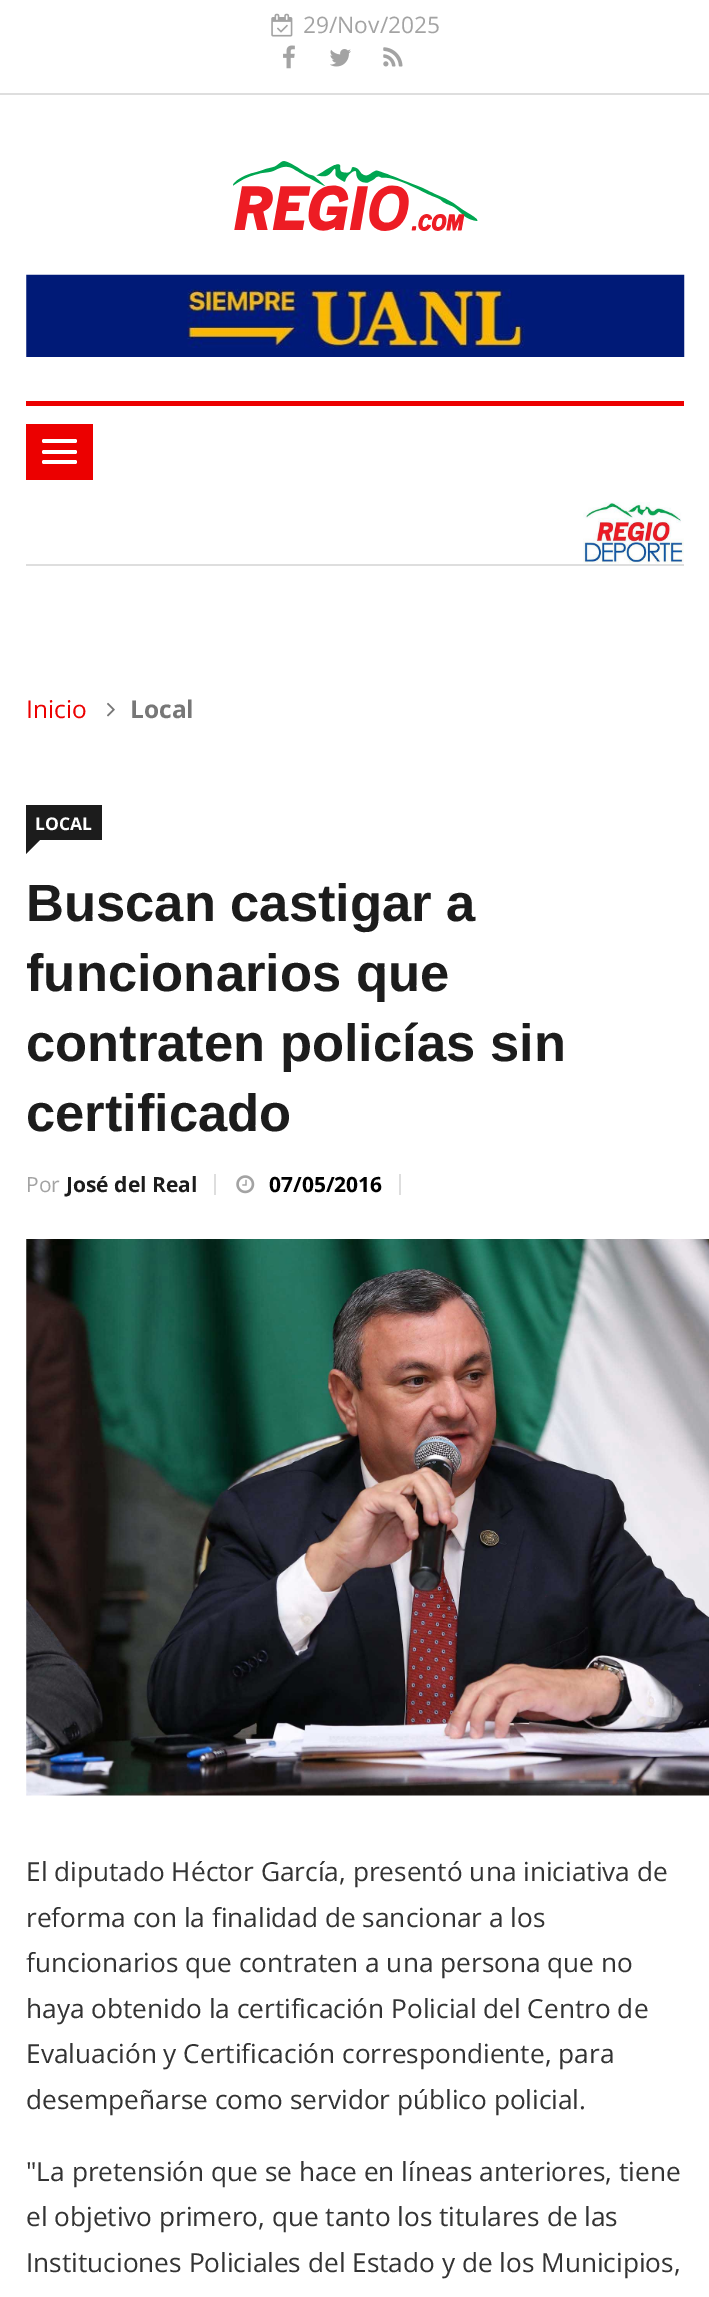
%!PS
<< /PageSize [709 2297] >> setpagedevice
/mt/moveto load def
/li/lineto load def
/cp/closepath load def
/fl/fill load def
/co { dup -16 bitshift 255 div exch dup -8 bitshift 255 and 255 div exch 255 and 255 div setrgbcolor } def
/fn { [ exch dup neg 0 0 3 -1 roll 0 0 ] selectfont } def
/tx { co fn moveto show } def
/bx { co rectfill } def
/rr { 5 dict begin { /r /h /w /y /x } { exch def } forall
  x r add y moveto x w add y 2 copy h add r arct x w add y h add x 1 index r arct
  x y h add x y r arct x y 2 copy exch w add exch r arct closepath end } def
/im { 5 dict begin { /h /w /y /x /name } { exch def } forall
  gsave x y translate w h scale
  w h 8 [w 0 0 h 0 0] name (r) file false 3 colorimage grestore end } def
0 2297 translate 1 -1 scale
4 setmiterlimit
0 0 709 2297 16#FFFFFF bx
0 93 709 2 16#DEDEDE bx
(media/1.raw) 271 13 22 24 im
(media/2.raw) 283 45 12 24 im
(media/3.raw) 330 49 21 18 im
(media/4.raw) 383 47 20 20 im
(media/5.raw) 233 161 245 70 im
(media/6.raw) 26 274 659 83 im
26 401 658 5 16#EC0000 bx
26 564 658 2 16#DEDEDE bx
26 424 67 56 16#EC0000 bx
16#FFFFFF co
42 439 35 4 2 rr fl
42 450 35 4 2 rr fl
42 460 35 4 2 rr fl
(media/7.raw) 583 502 101 62 im
(media/8.raw) 107 702 8 15 im
26 805 76 35 16#1C1C1C bx
26 840 mt 40 840 li 26 854 li cp fl
214 1174 2 21 16#DEDEDE bx
(media/9.raw) 236 1175 19 19 im
399 1174 2 21 16#DEDEDE bx
(media/10.raw) 26 1239 683 557 im
(29/Nov/2025) 303 33 /OpenSans-Regular 22.75 16#A3A3A3 tx
(Inicio) 26 718 /OpenSans-Regular 24.5 16#EC0000 tx
(Local) 130 718 /OpenSans-Bold 24.5 16#777777 tx
(LOCAL) 35 830 /OpenSans-Bold 17.5 16#FFFFFF tx
(Buscan castigar a) 26 921 /Arimo-Bold 52.5 16#1C1C1C tx
(funcionarios que) 26 991 /Arimo-Bold 52.5 16#1C1C1C tx
(contraten policías sin) 26 1061 /Arimo-Bold 52.5 16#1C1C1C tx
(certificado) 26 1131 /Arimo-Bold 52.5 16#1C1C1C tx
(Por) 26 1192 /OpenSans-Regular 21 16#A3A3A3 tx
(José del Real) 66 1192 /OpenSans-Bold 21 16#1C1C1C tx
(07/05/2016) 269 1192 /OpenSans-Bold 21 16#000000 tx
(El diputado Héctor García, presentó una iniciativa de) 26 1881 /OpenSans-Regular 26.25 16#333333 tx
(reforma con la finalidad de sancionar a los) 26 1927 /OpenSans-Regular 26.25 16#333333 tx
(funcionarios que contraten a una persona que no) 26 1972 /OpenSans-Regular 26.25 16#333333 tx
(haya obtenido la certificación Policial del Centro de) 26 2018 /OpenSans-Regular 26.25 16#333333 tx
(Evaluación y Certificación correspondiente, para) 26 2063 /OpenSans-Regular 26.25 16#333333 tx
(desempeñarse como servidor público policial.) 26 2109 /OpenSans-Regular 26.25 16#333333 tx
("La pretensión que se hace en líneas anteriores, tiene) 26 2181 /OpenSans-Regular 26.25 16#333333 tx
(el objetivo primero, que tanto los titulares de las) 26 2226 /OpenSans-Regular 26.25 16#333333 tx
(Instituciones Policiales del Estado y de los Municipios,) 26 2272 /OpenSans-Regular 26.25 16#333333 tx
showpage
